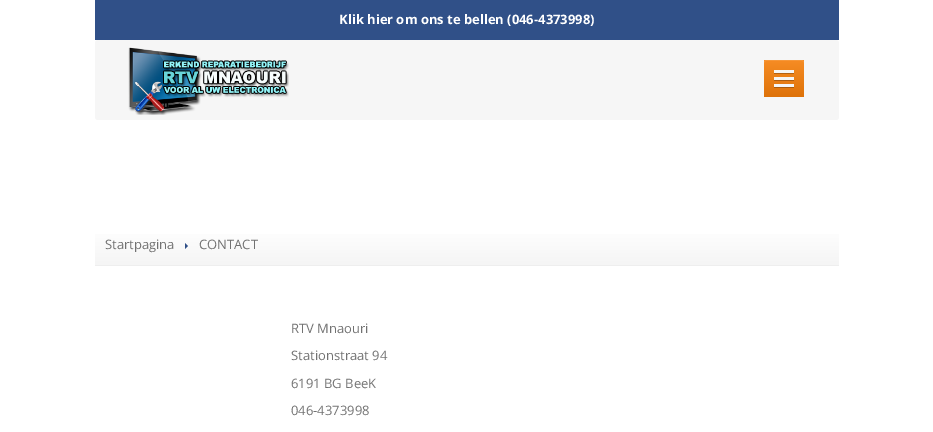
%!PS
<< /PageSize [933 432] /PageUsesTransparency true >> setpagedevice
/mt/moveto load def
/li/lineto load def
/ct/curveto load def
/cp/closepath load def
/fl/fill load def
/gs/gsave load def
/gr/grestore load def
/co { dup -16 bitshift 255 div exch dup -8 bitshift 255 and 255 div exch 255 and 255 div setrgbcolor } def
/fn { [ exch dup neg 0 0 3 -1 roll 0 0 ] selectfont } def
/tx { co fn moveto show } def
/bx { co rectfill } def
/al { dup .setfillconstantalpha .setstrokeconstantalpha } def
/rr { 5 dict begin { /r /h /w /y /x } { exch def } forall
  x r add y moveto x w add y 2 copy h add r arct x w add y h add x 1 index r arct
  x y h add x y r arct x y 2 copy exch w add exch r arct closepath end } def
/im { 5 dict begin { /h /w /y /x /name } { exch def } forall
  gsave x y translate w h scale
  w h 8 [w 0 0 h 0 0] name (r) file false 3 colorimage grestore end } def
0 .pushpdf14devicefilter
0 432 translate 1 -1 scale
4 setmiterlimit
0 0 933 432 16#FFFFFF bx
95 0 744 40 16#305088 bx
16#F6F6F6 co
95 40 744 80 3 rr fl
(media/1.raw) 128 47 161 68 im
gs 764 60 40 37 2 rr clip newpath
<< /ShadingType 2 /ColorSpace /DeviceRGB /Coords [784 60 784 97] /Extend [true true] /Function << /FunctionType 2 /Domain [0 1] /C0 [.965 .549 .141] /C1 [.871 .447 .035] /N 1 >> >> shfill gr
0.1 al
16#FFFFFF co
766 61 mt 802 61 li 803 61 804 62 804 63 ct 804 59 800 60 796 60 ct 772 60 li 768 60 764 59 764 63 ct 764 62 765 61 766 61 ct cp fl
1 al
774 73 20 1 16#B26214 bx
774 70 20 3 16#F5F5F5 bx
774 80 20 1 16#AF5F10 bx
774 77 20 3 16#F5F5F5 bx
774 87 20 1 16#AB5B0C bx
774 84 20 3 16#F5F5F5 bx
gs 95 234 mt 839 234 li 839 265 li 95 265 li cp clip newpath
<< /ShadingType 2 /ColorSpace /DeviceRGB /Coords [467 224 467 265] /Extend [true true] /Function << /FunctionType 2 /Domain [0 1] /C0 [1 1 1] /C1 [.961 .961 .961] /N 1 >> >> shfill gr
95 265 744 1 16#EEEEEE bx
16#305088 co
185 249 mt 185 243 li 188 246 li cp fl
(Klik hier om ons te bellen \(046-4373998\)) 339 24 /OpenSans-Bold 13 16#FFFFFF tx
(Startpagina) 105 249 /OpenSans-Regular 13 16#727272 tx
(CONTACT) 199 249 /OpenSans-Regular 13 16#727272 tx
(RTV Mnaouri) 291 333 /OpenSans-Regular 13 16#727272 tx
(Stationstraat 94) 291 360 /OpenSans-Regular 13 16#727272 tx
(6191 BG BeeK) 291 388 /OpenSans-Regular 13 16#727272 tx
(046-4373998) 291 415 /OpenSans-Regular 13 16#727272 tx
.poppdf14devicefilter showpage
